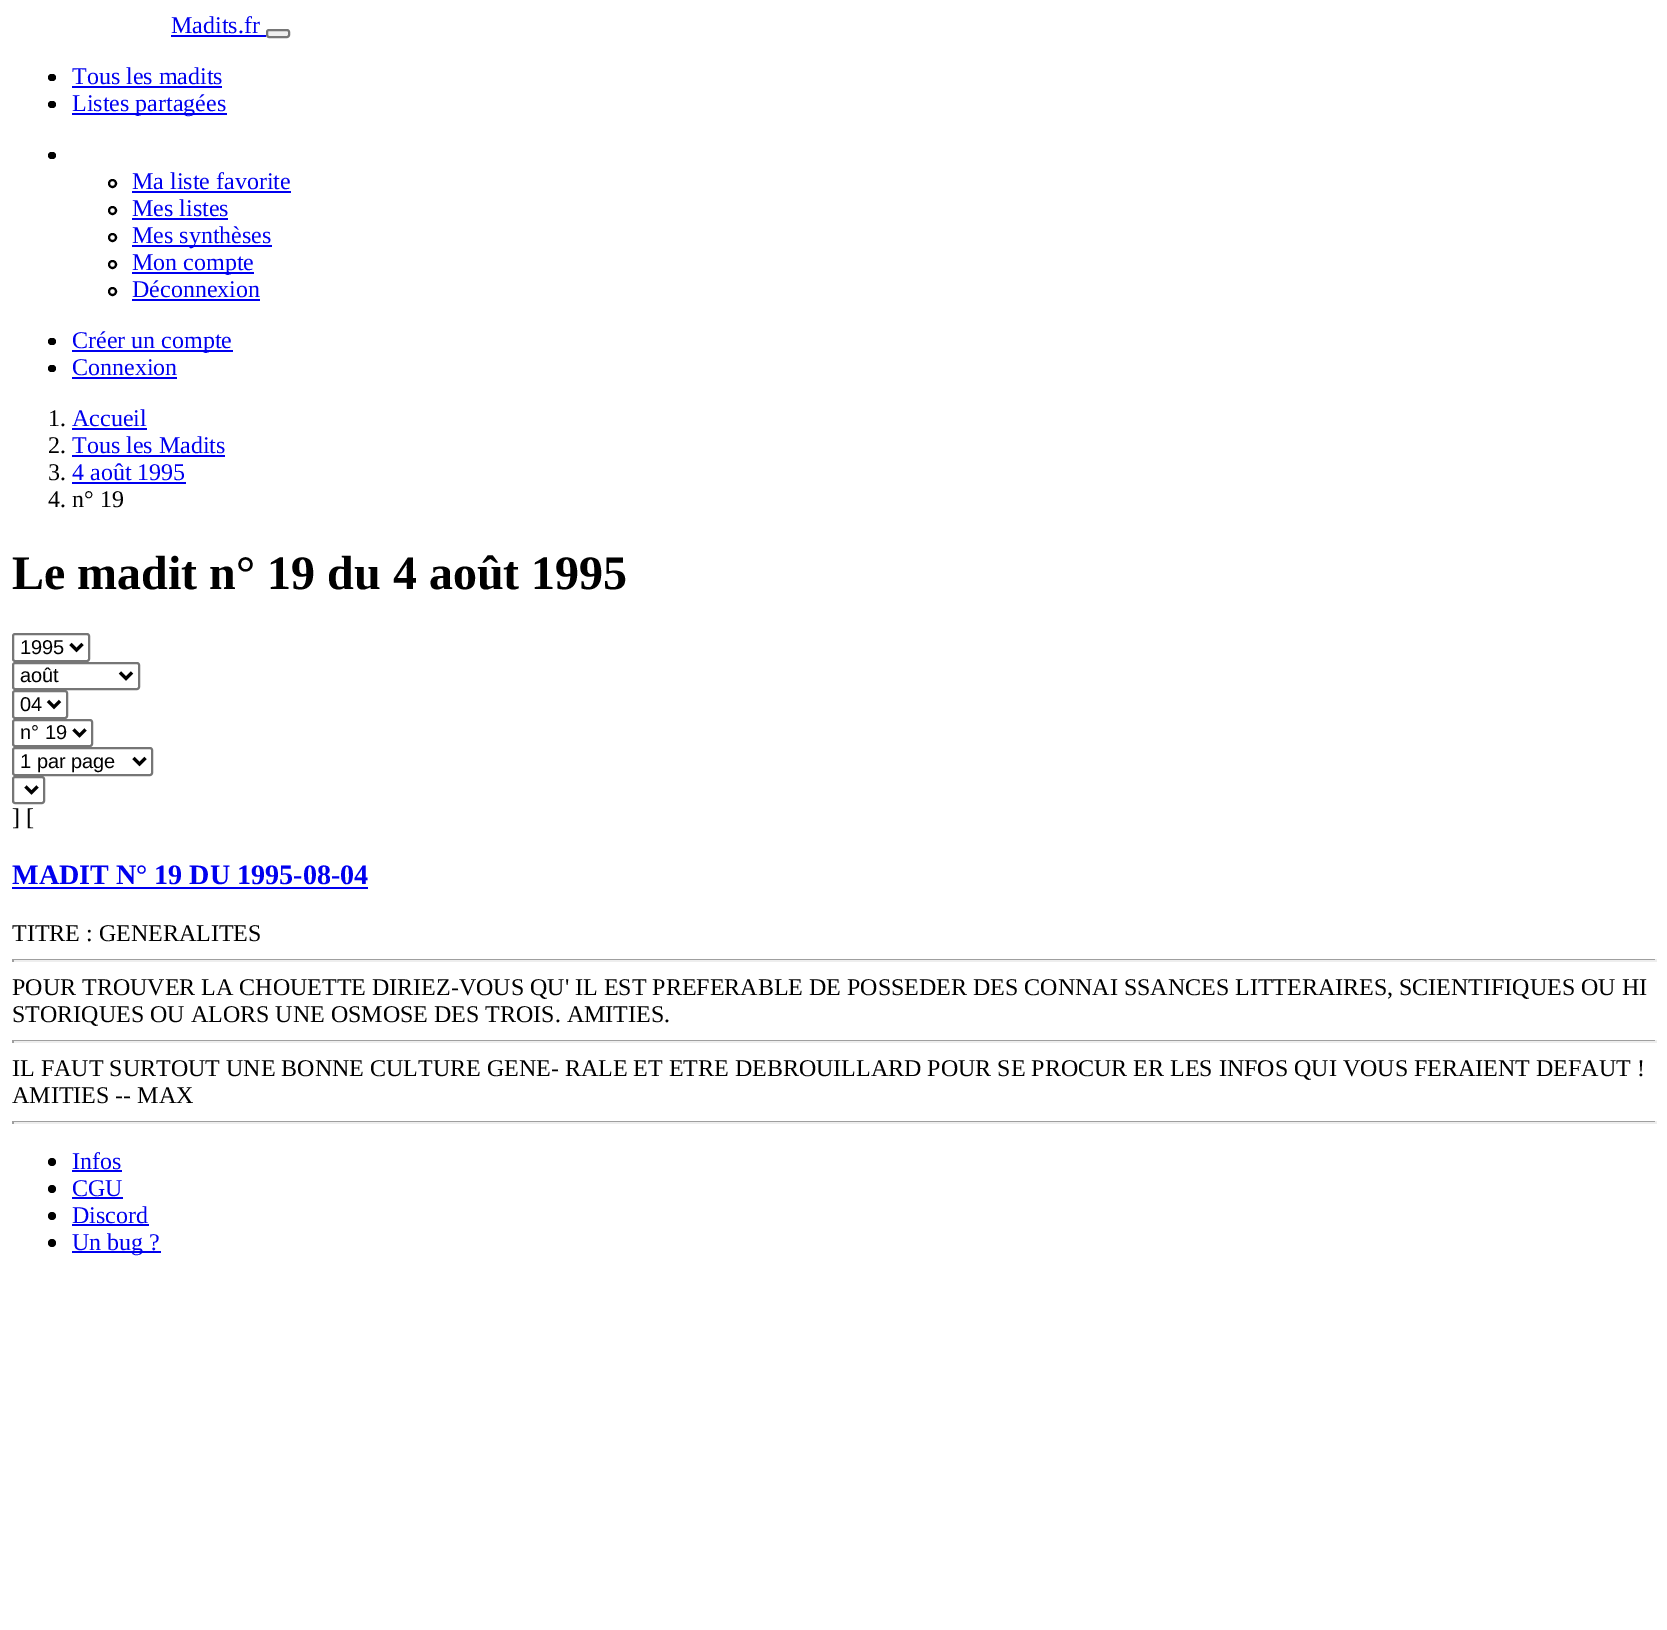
%!PS
<< /PageSize [1667 1630] >> setpagedevice
/mt/moveto load def
/li/lineto load def
/fl/fill load def
/st/stroke load def
/gs/gsave load def
/gr/grestore load def
/lw/setlinewidth load def
/co { dup -16 bitshift 255 div exch dup -8 bitshift 255 and 255 div exch 255 and 255 div setrgbcolor } def
/fn { [ exch dup neg 0 0 3 -1 roll 0 0 ] selectfont } def
/tx { co fn moveto show } def
/bx { co rectfill } def
/ci { newpath 0 360 arc closepath } def
/rr { 5 dict begin { /r /h /w /y /x } { exch def } forall
  x r add y moveto x w add y 2 copy h add r arct x w add y h add x 1 index r arct
  x y h add x y r arct x y 2 copy exch w add exch r arct closepath end } def
0 1630 translate 1 -1 scale
4 setmiterlimit
0 0 1667 1630 16#FFFFFF bx
171 35 95 2 16#0000EE bx
16#EFEFEF co
267 30 22 7 2 rr gs fl gr
16#767676 co
2 lw
st
16#000000 co
48 74 8 7 3.5 rr fl
72 86 150 2 16#0000EE bx
16#000000 co
48 101 8 7 3.5 rr fl
72 113 155 2 16#0000EE bx
16#000000 co
48 152 8 7 3.5 rr fl
112.5 183.5 3.5 ci st
132 191 159 2 16#0000EE bx
16#000000 co
112.5 210.5 3.5 ci st
132 218 96 2 16#0000EE bx
16#000000 co
112.5 237.5 3.5 ci st
132 245 140 2 16#0000EE bx
16#000000 co
112.5 264.5 3.5 ci st
132 272 122 2 16#0000EE bx
16#000000 co
112.5 291.5 3.5 ci st
132 299 128 2 16#0000EE bx
16#000000 co
48 338 8 7 3.5 rr fl
72 350 161 2 16#0000EE bx
16#000000 co
48 365 8 7 3.5 rr fl
72 377 105 2 16#0000EE bx
72 428 75 2 16#0000EE bx
72 455 153 2 16#0000EE bx
72 482 114 2 16#0000EE bx
16#767676 co
13 634 76 27 2 rr st
16#000000 co
3 lw
70.5 644 mt 76.5 650 li 82.5 644 li st
16#767676 co
2 lw
13 663 126 26 2 rr st
16#000000 co
3 lw
120 672.5 mt 126 678.5 li 132 672.5 li st
16#767676 co
2 lw
13 691 54 27 2 rr st
16#000000 co
3 lw
48 701 mt 54 707 li 60 701 li st
16#767676 co
2 lw
13 720 79 26 2 rr st
16#000000 co
3 lw
73.5 729.5 mt 79.5 735.5 li 85.5 729.5 li st
16#767676 co
2 lw
13 748 139 27 2 rr st
16#000000 co
3 lw
133.5 758 mt 139.5 764 li 145.5 758 li st
16#767676 co
2 lw
13 777 31 26 2 rr st
16#000000 co
3 lw
25.5 786.5 mt 31.5 792.5 li 37.5 786.5 li st
12 887 356 2 16#0000EE bx
12 959 1644 1 16#9F9F9F bx
1655 959 2 3 16#EEEEEE bx
12 960 1644 2 16#EEEEEE bx
12 959 2 3 16#9F9F9F bx
12 1040 1644 1 16#9F9F9F bx
1655 1040 2 3 16#EEEEEE bx
12 1041 1644 2 16#EEEEEE bx
12 1040 2 3 16#9F9F9F bx
12 1121 1644 1 16#9F9F9F bx
1655 1121 2 3 16#EEEEEE bx
12 1122 1644 2 16#EEEEEE bx
12 1121 2 3 16#9F9F9F bx
16#000000 co
52 1162 4 ci fl
72 1170 50 2 16#0000EE bx
16#000000 co
52 1189 4 ci fl
72 1197 51 2 16#0000EE bx
16#000000 co
52 1216 4 ci fl
72 1224 77 2 16#0000EE bx
16#000000 co
52 1243 4 ci fl
72 1251 89 2 16#0000EE bx
(Madits.fr) 171 33 /LiberationSerif-Regular 24 16#0000EE tx
(Tous les madits) 72 84 /LiberationSerif-Regular 24 16#0000EE tx
(Listes partagées) 72 111 /LiberationSerif-Regular 24 16#0000EE tx
(Ma liste favorite) 132 189 /LiberationSerif-Regular 24 16#0000EE tx
(Mes listes) 132 216 /LiberationSerif-Regular 24 16#0000EE tx
(Mes synthèses) 132 243 /LiberationSerif-Regular 24 16#0000EE tx
(Mon compte) 132 270 /LiberationSerif-Regular 24 16#0000EE tx
(Déconnexion) 132 297 /LiberationSerif-Regular 24 16#0000EE tx
(Créer un compte) 72 348 /LiberationSerif-Regular 24 16#0000EE tx
(Connexion) 72 375 /LiberationSerif-Regular 24 16#0000EE tx
(1.) 48 426 /LiberationSerif-Regular 24 16#000000 tx
(Accueil) 72 426 /LiberationSerif-Regular 24 16#0000EE tx
(2.) 48 453 /LiberationSerif-Regular 24 16#000000 tx
(Tous les Madits) 72 453 /LiberationSerif-Regular 24 16#0000EE tx
(3.) 48 480 /LiberationSerif-Regular 24 16#000000 tx
(4 août 1995) 72 480 /LiberationSerif-Regular 24 16#0000EE tx
(4. n° 19) 48 507 /LiberationSerif-Regular 24 16#000000 tx
(Le madit n° 19 du 4 août 1995) 12 589 /LiberationSerif-Bold 48 16#000000 tx
(1995) 20 654 /LiberationSans-Regular 20 16#000000 tx
(août) 20 682 /LiberationSans-Regular 20 16#000000 tx
(04) 20 711 /LiberationSans-Regular 20 16#000000 tx
(n° 19) 20 739 /LiberationSans-Regular 20 16#000000 tx
(1 par page) 20 768 /LiberationSans-Regular 20 16#000000 tx
(] [) 12 825 /LiberationSerif-Regular 24 16#000000 tx
(MADIT N° 19 DU 1995-08-04) 12 884 /LiberationSerif-Bold 28.1 16#0000EE tx
(TITRE : GENERALITES) 12 941 /LiberationSerif-Regular 24 16#000000 tx
(POUR TROUVER LA CHOUETTE DIRIEZ-VOUS QU' IL EST PREFERABLE DE POSSEDER DES CONNAI SSANCES LITTERAIRES, SCIENTIFIQUES OU HI) 12 995 /LiberationSerif-Regular 24 16#000000 tx
(STORIQUES OU ALORS UNE OSMOSE DES TROIS. AMITIES.) 12 1022 /LiberationSerif-Regular 24 16#000000 tx
(IL FAUT SURTOUT UNE BONNE CULTURE GENE- RALE ET ETRE DEBROUILLARD POUR SE PROCUR ER LES INFOS QUI VOUS FERAIENT DEFAUT !) 12 1076 /LiberationSerif-Regular 24 16#000000 tx
(AMITIES -- MAX) 12 1103 /LiberationSerif-Regular 24 16#000000 tx
(Infos) 72 1169 /LiberationSerif-Regular 24 16#0000EE tx
(CGU) 72 1196 /LiberationSerif-Regular 24 16#0000EE tx
(Discord) 72 1223 /LiberationSerif-Regular 24 16#0000EE tx
(Un bug ?) 72 1250 /LiberationSerif-Regular 24 16#0000EE tx
showpage
